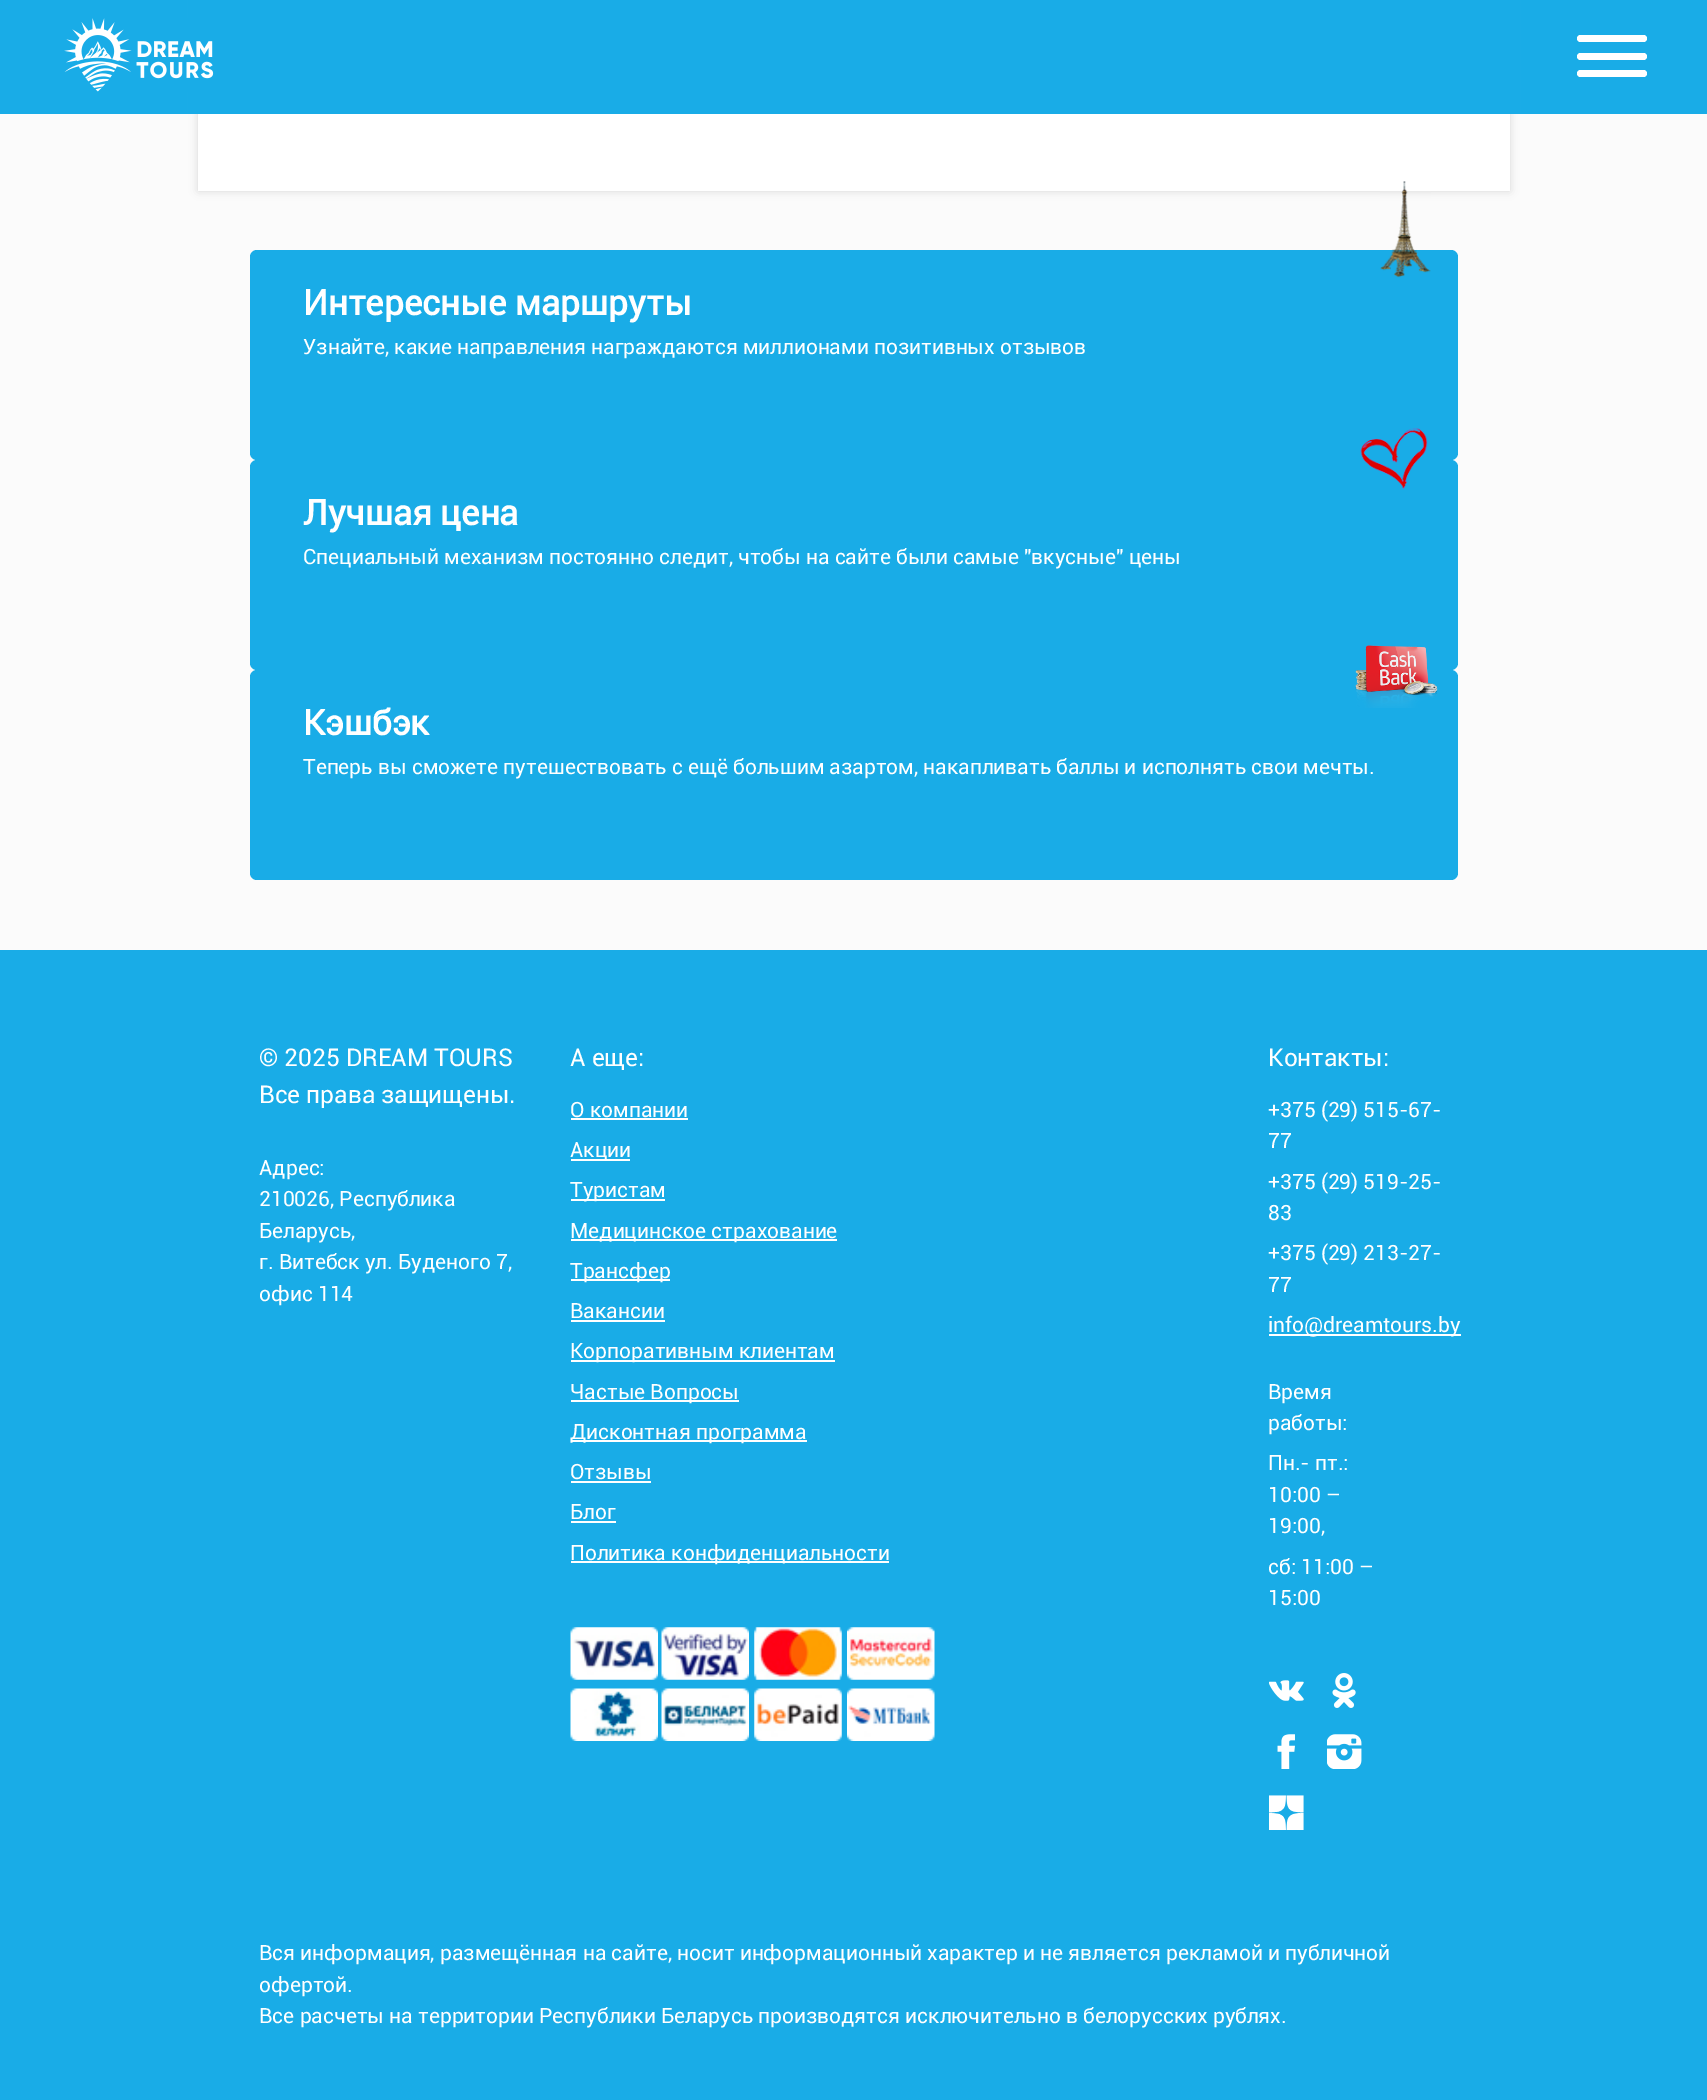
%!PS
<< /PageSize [1707 2100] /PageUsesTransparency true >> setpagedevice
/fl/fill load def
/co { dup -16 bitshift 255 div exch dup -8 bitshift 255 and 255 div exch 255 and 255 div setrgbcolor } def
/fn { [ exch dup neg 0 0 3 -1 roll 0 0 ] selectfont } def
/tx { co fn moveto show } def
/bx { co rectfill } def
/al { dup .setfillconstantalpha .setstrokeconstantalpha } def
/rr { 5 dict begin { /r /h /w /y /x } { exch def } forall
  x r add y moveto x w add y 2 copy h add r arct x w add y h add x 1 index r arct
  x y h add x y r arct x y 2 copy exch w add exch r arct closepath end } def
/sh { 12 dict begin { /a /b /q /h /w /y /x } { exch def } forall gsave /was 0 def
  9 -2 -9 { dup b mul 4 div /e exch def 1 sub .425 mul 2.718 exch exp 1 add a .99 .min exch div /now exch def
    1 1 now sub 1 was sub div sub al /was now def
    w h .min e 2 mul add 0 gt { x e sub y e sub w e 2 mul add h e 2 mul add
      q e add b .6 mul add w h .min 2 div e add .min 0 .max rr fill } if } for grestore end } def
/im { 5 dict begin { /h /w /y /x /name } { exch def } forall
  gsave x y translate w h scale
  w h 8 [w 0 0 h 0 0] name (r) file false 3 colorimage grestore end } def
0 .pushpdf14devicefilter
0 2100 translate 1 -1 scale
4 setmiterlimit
0 0 1707 2100 16#19ACE7 bx
0 114 1707 836 16#FBFBFB bx
16#D6D6D6 co
198 -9 1312 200 0 4.5 1 sh
188 0 1332 114 16#19ACE7 bx
(media/1.raw) 64 18 150 74 im
16#FFFFFF co
1577 70 70 7 3.5 rr fl
1577 35 70 7 3.5 rr fl
1577 53 70 7 3.5 rr fl
198 114 1312 77 16#FFFFFF bx
16#19ACE7 co
250 250 1208 210 7 rr fl
(media/2.raw) 1380 181 51 97 im
250 460 1208 210 7 rr fl
(media/3.raw) 1360 428 68 61 im
250 670 1208 210 7 rr fl
(media/4.raw) 1355 645 83 63 im
571 1118 117 2 16#FFFFFF bx
571 1159 59 2 16#FFFFFF bx
571 1199 94 2 16#FFFFFF bx
571 1239 266 2 16#FFFFFF bx
571 1279 99 2 16#FFFFFF bx
571 1320 94 2 16#FFFFFF bx
571 1360 264 2 16#FFFFFF bx
571 1400 168 2 16#FFFFFF bx
571 1440 236 2 16#FFFFFF bx
571 1481 80 2 16#FFFFFF bx
571 1521 45 2 16#FFFFFF bx
571 1561 318 2 16#FFFFFF bx
(media/5.raw) 570 1627 88 53 im
(media/6.raw) 661 1627 88 53 im
(media/7.raw) 754 1627 88 53 im
(media/8.raw) 847 1627 88 53 im
(media/9.raw) 570 1688 88 53 im
(media/10.raw) 661 1688 88 53 im
(media/11.raw) 754 1688 88 53 im
(media/12.raw) 847 1688 88 53 im
1269 1334 192 2 16#FFFFFF bx
(media/13.raw) 1269 1680 35 21 im
(media/14.raw) 1332 1673 24 35 im
(media/15.raw) 1277 1734 18 35 im
(media/16.raw) 1327 1734 35 35 im
(media/17.raw) 1269 1795 35 35 im
(Интересные маршруты) 303 315 /Roboto-Bold 35 16#FFFFFF tx
(Узнайте, какие направления награждаются миллионами позитивных отзывов) 303 354 /Roboto-Regular 21 16#FFFFFF tx
(Лучшая цена) 303 525 /Roboto-Bold 35 16#FFFFFF tx
(Специальный механизм постоянно следит, чтобы на сайте были самые "вкусные" цены) 303 564 /Roboto-Regular 21 16#FFFFFF tx
(Кэшбэк) 303 735 /Roboto-Bold 35 16#FFFFFF tx
(Теперь вы сможете путешествовать с ещё большим азартом, накапливать баллы и исполнять свои мечты.) 303 774 /Roboto-Regular 21 16#FFFFFF tx
(© 2025 DREAM TOURS) 259 1066 /Roboto-Regular 24.5 16#FFFFFF tx
(Все права защищены.) 259 1103 /Roboto-Regular 24.5 16#FFFFFF tx
(Адрес:) 259 1175 /Roboto-Regular 21 16#FFFFFF tx
(210026, Республика) 259 1206 /Roboto-Regular 21 16#FFFFFF tx
(Беларусь,) 259 1238 /Roboto-Regular 21 16#FFFFFF tx
(г. Витебск ул. Буденого 7,) 259 1269 /Roboto-Regular 21 16#FFFFFF tx
(офис 114) 259 1301 /Roboto-Regular 21 16#FFFFFF tx
(А еще:) 570 1066 /Roboto-Regular 24.5 16#FFFFFF tx
(О компании) 570 1117 /Roboto-Regular 21 16#FFFFFF tx
(Акции) 570 1157 /Roboto-Regular 21 16#FFFFFF tx
(Туристам) 570 1197 /Roboto-Regular 21 16#FFFFFF tx
(Медицинское страхование) 570 1238 /Roboto-Regular 21 16#FFFFFF tx
(Трансфер) 570 1278 /Roboto-Regular 21 16#FFFFFF tx
(Вакансии) 570 1318 /Roboto-Regular 21 16#FFFFFF tx
(Корпоративным клиентам) 570 1358 /Roboto-Regular 21 16#FFFFFF tx
(Частые Вопросы) 570 1399 /Roboto-Regular 21 16#FFFFFF tx
(Дисконтная программа) 570 1439 /Roboto-Regular 21 16#FFFFFF tx
(Отзывы) 570 1479 /Roboto-Regular 21 16#FFFFFF tx
(Блог) 570 1519 /Roboto-Regular 21 16#FFFFFF tx
(Политика конфиденциальности) 570 1560 /Roboto-Regular 21 16#FFFFFF tx
(Контакты:) 1268 1066 /Roboto-Regular 24.5 16#FFFFFF tx
(+375 \(29\) 515-67-) 1268 1117 /Roboto-Regular 21 16#FFFFFF tx
(77) 1268 1148 /Roboto-Regular 21 16#FFFFFF tx
(+375 \(29\) 519-25-) 1268 1189 /Roboto-Regular 21 16#FFFFFF tx
(83) 1268 1220 /Roboto-Regular 21 16#FFFFFF tx
(+375 \(29\) 213-27-) 1268 1260 /Roboto-Regular 21 16#FFFFFF tx
(77) 1268 1292 /Roboto-Regular 21 16#FFFFFF tx
(info@dreamtours.by) 1268 1332 /Roboto-Regular 21 16#FFFFFF tx
(Время) 1268 1399 /Roboto-Regular 21 16#FFFFFF tx
(работы:) 1268 1430 /Roboto-Regular 21 16#FFFFFF tx
(Пн.- пт.:) 1268 1470 /Roboto-Regular 21 16#FFFFFF tx
(10:00 –) 1268 1502 /Roboto-Regular 21 16#FFFFFF tx
(19:00,) 1268 1533 /Roboto-Regular 21 16#FFFFFF tx
(сб: 11:00 –) 1268 1574 /Roboto-Regular 21 16#FFFFFF tx
(15:00) 1268 1605 /Roboto-Regular 21 16#FFFFFF tx
(Вся информация, размещённая на сайте, носит информационный характер и не является рекламой и публичной) 259 1960 /Roboto-Regular 21 16#FFFFFF tx
(офертой.) 259 1992 /Roboto-Regular 21 16#FFFFFF tx
(Все расчеты на территории Республики Беларусь производятся исключительно в белорусских рублях.) 259 2023 /Roboto-Regular 21 16#FFFFFF tx
.poppdf14devicefilter showpage
